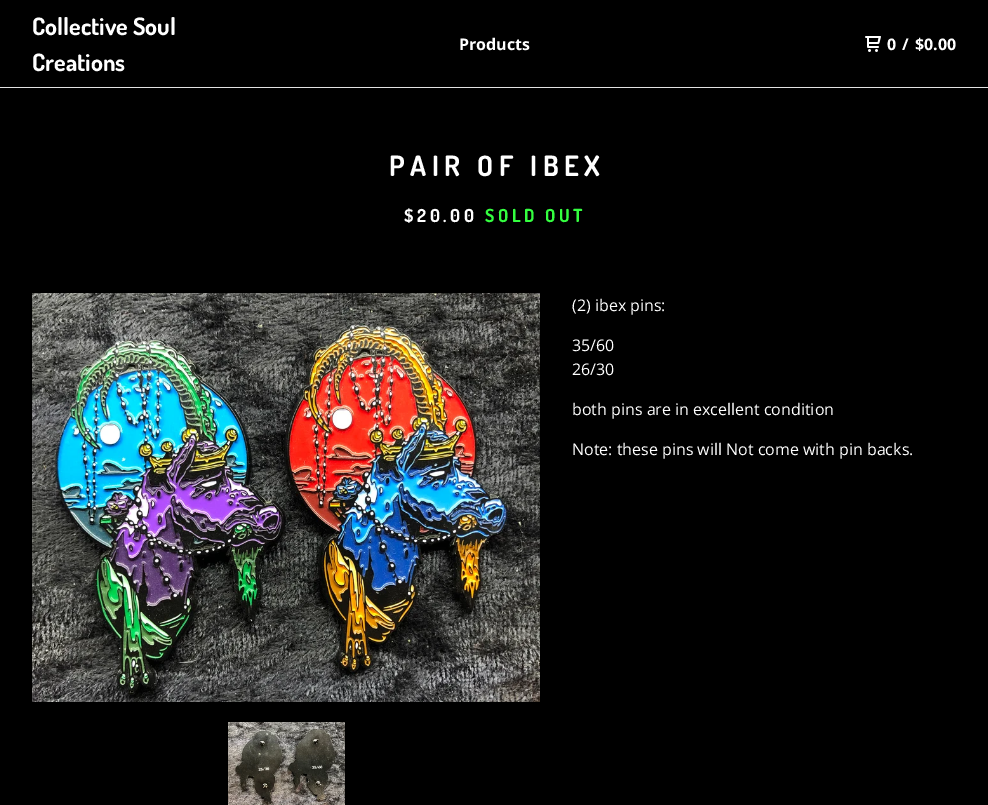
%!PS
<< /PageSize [988 805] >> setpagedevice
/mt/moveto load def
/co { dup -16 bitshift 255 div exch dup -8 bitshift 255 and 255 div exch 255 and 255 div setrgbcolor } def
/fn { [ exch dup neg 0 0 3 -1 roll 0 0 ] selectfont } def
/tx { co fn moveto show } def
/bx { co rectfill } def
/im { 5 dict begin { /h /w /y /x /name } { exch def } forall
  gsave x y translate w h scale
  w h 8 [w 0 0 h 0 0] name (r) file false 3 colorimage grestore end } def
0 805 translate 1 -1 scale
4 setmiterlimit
0 0 988 805 16#000000 bx
0 87 988 1 16#E2E2E2 bx
(media/1.raw) 865 36 16 16 im
(media/2.raw) 32 293 508 409 im
(media/3.raw) 228 722 117 83 im
(Collective Soul) 32 35 /Dosis-Bold 24 16#FFFFFF tx
(Creations) 32 71 /Dosis-Bold 24 16#FFFFFF tx
(Products) 459 50 /OpenSans-Bold 16 16#FFFFFF tx
(0) 887 50 /OpenSans-Bold 16 16#FFFFFF tx
(/) 902 50 /OpenSans-Bold 16 16#FFFFFF tx
($0.00) 915 50 /OpenSans-Bold 16 16#FFFFFF tx
/Dosis-Bold 28 fn
389 176 mt 5.6 0 (PAIR OF IBEX) ashow
/Dosis-Bold 18 fn
404 222 mt 3.5 0 ($20.00) ashow
16#34FE40 co
485 222 mt 3.5 0 (SOLD OUT) ashow
(\(2\) ibex pins:) 572 311 /OpenSans-Regular 16 16#FFFFFF tx
(35/60) 572 351 /OpenSans-Regular 16 16#FFFFFF tx
(26/30) 572 375 /OpenSans-Regular 16 16#FFFFFF tx
(both pins are in excellent condition) 572 415 /OpenSans-Regular 16 16#FFFFFF tx
(Note: these pins will Not come with pin backs.) 572 455 /OpenSans-Regular 16 16#FFFFFF tx
showpage
